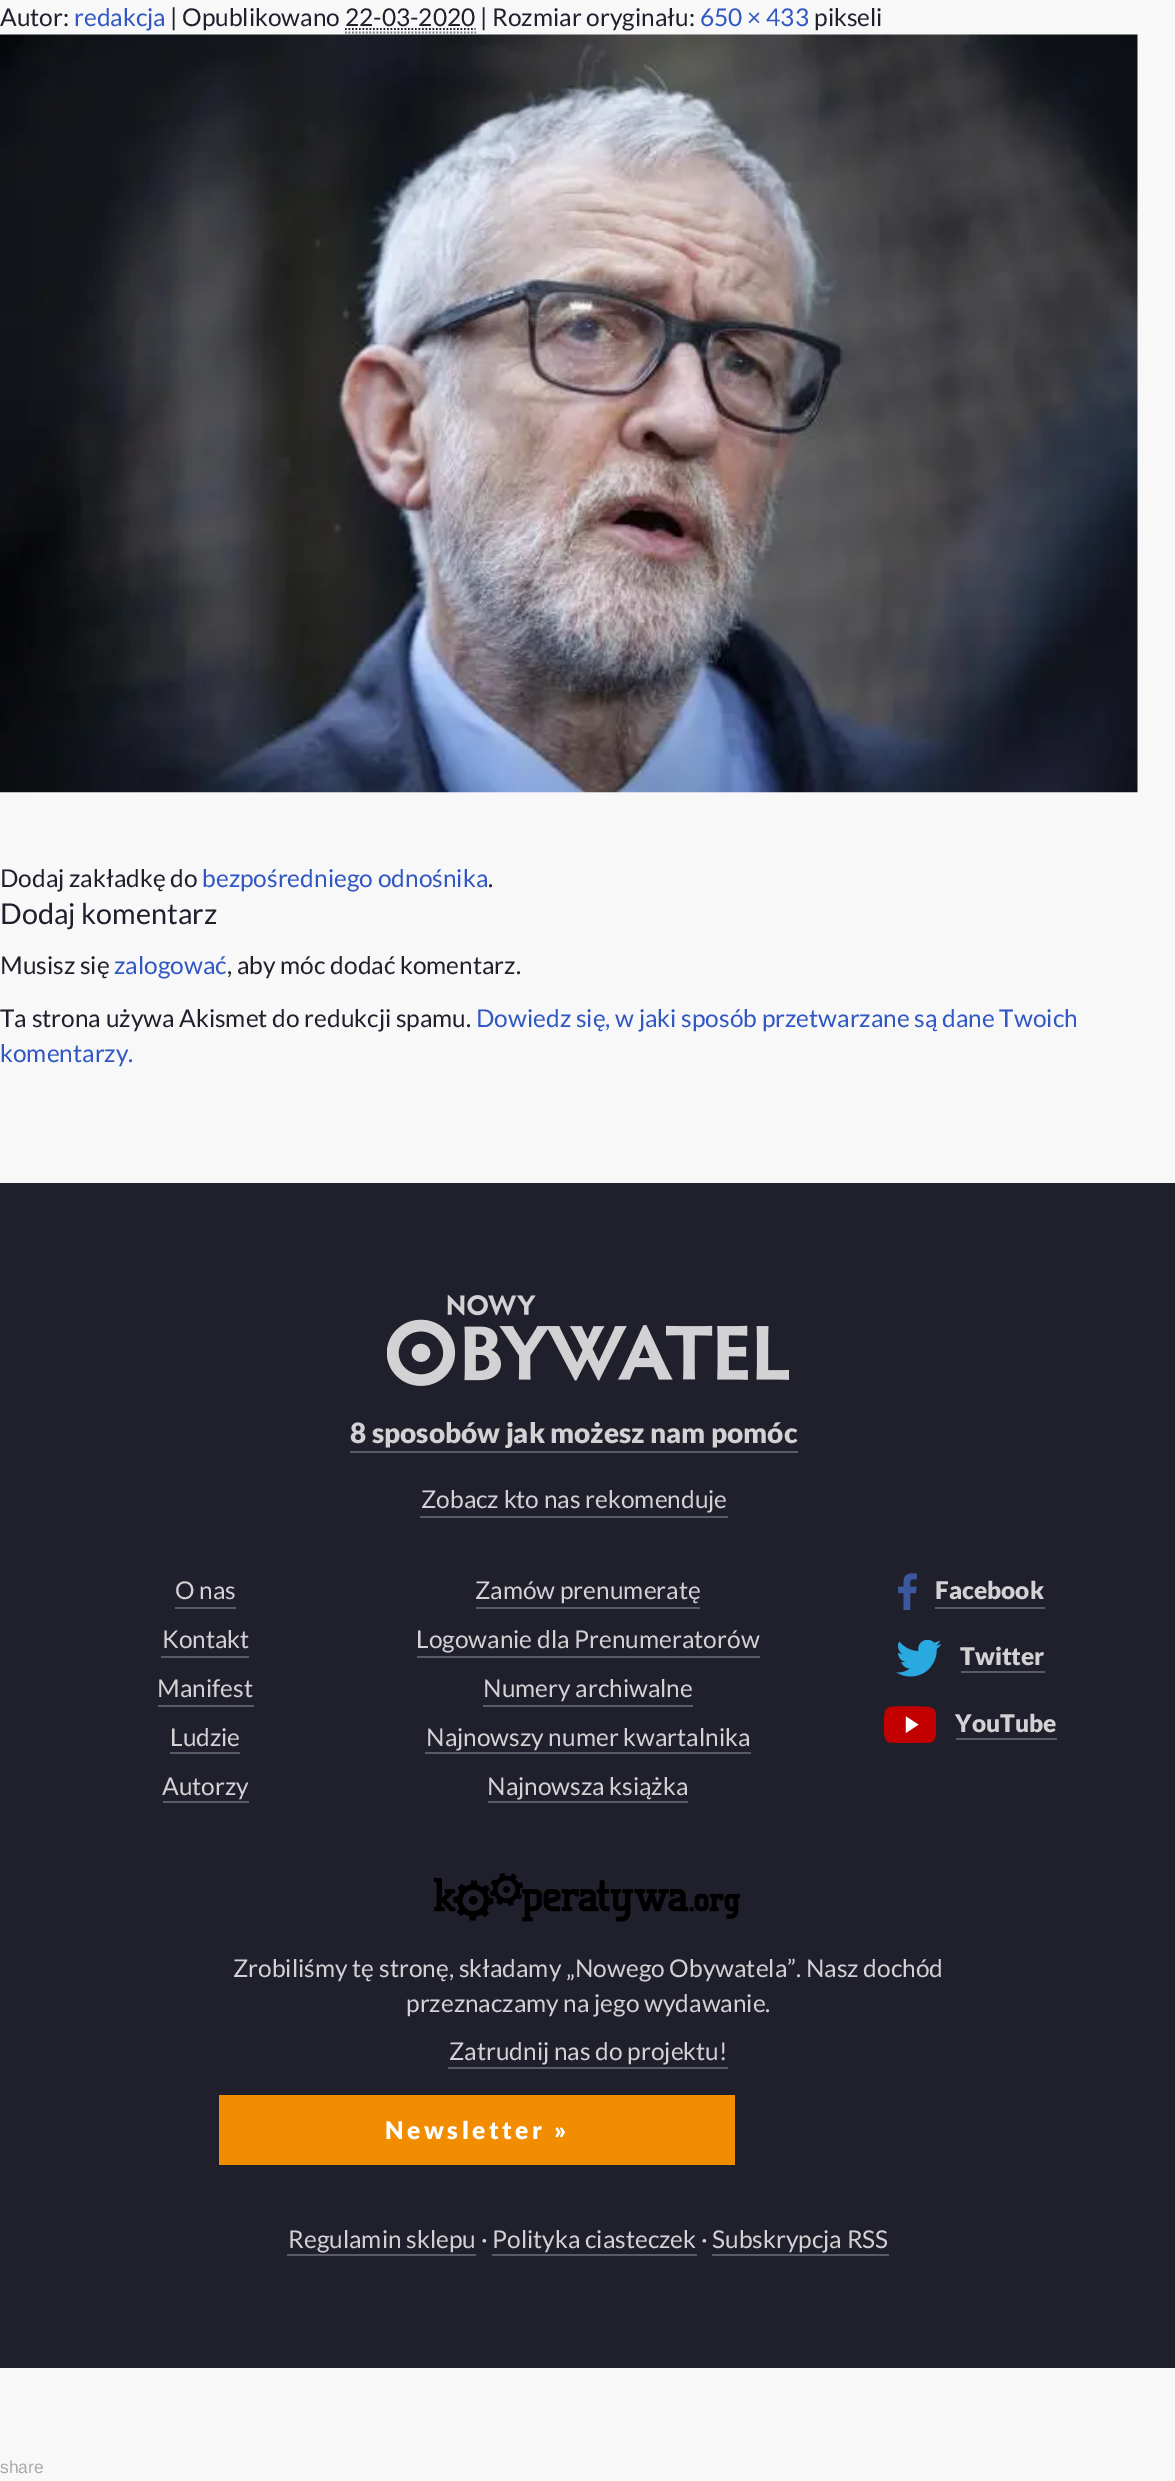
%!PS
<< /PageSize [1175 2481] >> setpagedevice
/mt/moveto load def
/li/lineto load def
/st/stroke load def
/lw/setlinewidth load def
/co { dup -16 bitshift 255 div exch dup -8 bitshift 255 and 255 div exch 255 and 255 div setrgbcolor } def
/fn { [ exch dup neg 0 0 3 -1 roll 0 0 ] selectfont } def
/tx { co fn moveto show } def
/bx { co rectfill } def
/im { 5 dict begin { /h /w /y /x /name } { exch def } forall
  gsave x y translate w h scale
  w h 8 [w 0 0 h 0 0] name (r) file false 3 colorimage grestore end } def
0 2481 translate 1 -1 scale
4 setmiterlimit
0 0 1175 2481 16#F8F8F9 bx
16#20202D co
1.8 lw
[1.75 1.75] 0 setdash
345 29 mt 475.5 29 li st
16#797981 co
345 32.5 mt 476 32.5 li st
(media/1.raw) 0 34 1138 759 im
0 1183 1175 1185 16#20202D bx
(media/2.raw) 387 1295 402 91 im
350 1451 448 2 16#5B5B65 bx
420 1516 308 2 16#5B5B65 bx
175 1607 61 2 16#5B5B65 bx
161 1656 88 2 16#5B5B65 bx
158 1705 96 2 16#5B5B65 bx
170 1752 70 2 16#5B5B65 bx
163 1801 86 2 16#5B5B65 bx
476 1607 224 2 16#5B5B65 bx
417 1656 343 2 16#5B5B65 bx
483 1705 210 2 16#5B5B65 bx
425 1752 326 2 16#5B5B65 bx
488 1801 200 2 16#5B5B65 bx
(media/3.raw) 898 1573 19 37 im
935 1607 110 2 16#5B5B65 bx
(media/4.raw) 896 1640 46 37 im
961 1671 84 2 16#5B5B65 bx
(media/5.raw) 884 1706 52 37 im
956 1738 101 2 16#5B5B65 bx
(media/6.raw) 434 1873 306 49 im
448 2067 280 2 16#5B5B65 bx
219 2095 516 70 16#F28C00 bx
287 2254 189 2 16#5B5B65 bx
492 2254 205 2 16#5B5B65 bx
712 2254 177 2 16#5B5B65 bx
(Autor:) 0 26 /Lato-Regular 24.5 16#20202D tx
(redakcja) 74 26 /Lato-Regular 24.5 16#3057C2 tx
(| Opublikowano 22-03-2020 | Rozmiar oryginału:) 170 26 /Lato-Regular 24.5 16#20202D tx
(650 × 433) 700 26 /Lato-Regular 24.5 16#3057C2 tx
(pikseli) 814 26 /Lato-Regular 24.5 16#20202D tx
(Dodaj zakładkę do) 0 887 /Lato-Regular 24.5 16#20202D tx
(bezpośredniego odnośnika) 202 887 /Lato-Regular 24.5 16#3057C2 tx
(.) 488 887 /Lato-Regular 24.5 16#20202D tx
(Dodaj komentarz) 0 924 /Lato-Regular 28.75 16#20202D tx
(Musisz się) 0 974 /Lato-Regular 24.5 16#20202D tx
(zalogować) 114 974 /Lato-Regular 24.5 16#3057C2 tx
(, aby móc dodać komentarz.) 227 974 /Lato-Regular 24.5 16#20202D tx
(Ta strona używa Akismet do redukcji spamu.) 0 1027 /Lato-Regular 24.5 16#20202D tx
(Dowiedz się, w jaki sposób przetwarzane są dane Twoich) 476 1027 /Lato-Regular 24.5 16#3057C2 tx
(komentarzy.) 0 1062 /Lato-Regular 24.5 16#3057C2 tx
(8 sposobów jak możesz nam pomóc) 350 1443 /Lato-Black 28 16#D2D2D5 tx
(Zobacz kto nas rekomenduje) 421 1508 /Lato-Regular 24.5 16#D2D2D5 tx
(O nas) 175 1599 /Lato-Regular 24.5 16#D2D2D5 tx
(Kontakt) 162 1648 /Lato-Regular 24.5 16#D2D2D5 tx
(Manifest) 157 1697 /Lato-Regular 24.5 16#D2D2D5 tx
(Ludzie) 170 1746 /Lato-Regular 24.5 16#D2D2D5 tx
(Autorzy) 162 1795 /Lato-Regular 24.5 16#D2D2D5 tx
(Zamów prenumeratę) 475 1599 /Lato-Regular 24.5 16#D2D2D5 tx
(Logowanie dla Prenumeratorów) 416 1648 /Lato-Regular 24.5 16#D2D2D5 tx
(Numery archiwalne) 483 1697 /Lato-Regular 24.5 16#D2D2D5 tx
(Najnowszy numer kwartalnika) 426 1746 /Lato-Regular 24.5 16#D2D2D5 tx
(Najnowsza książka) 487 1795 /Lato-Regular 24.5 16#D2D2D5 tx
(Facebook) 935 1599 /Lato-Black 24.5 16#D2D2D5 tx
(Twitter) 960 1665 /Lato-Black 24.5 16#D2D2D5 tx
(YouTube) 955 1732 /Lato-Black 24.5 16#D2D2D5 tx
(Zrobiliśmy tę stronę, składamy „Nowego Obywatela”. Nasz dochód) 233 1977 /Lato-Regular 24.5 16#D2D2D5 tx
(przeznaczamy na jego wydawanie.) 406 2012 /Lato-Regular 24.5 16#D2D2D5 tx
(Zatrudnij nas do projektu!) 449 2060 /Lato-Regular 24.5 16#D2D2D5 tx
/Lato-Black 24.5 fn
16#FFFFFF co
385 2139 mt 3.5 0 (Newsletter ») ashow
(Regulamin sklepu · Polityka ciasteczek · Subskrypcja RSS) 288 2248 /Lato-Regular 24.5 16#D2D2D5 tx
(share) 0 2473 /LiberationSans-Regular 17.5 16#AAAAAA tx
showpage
